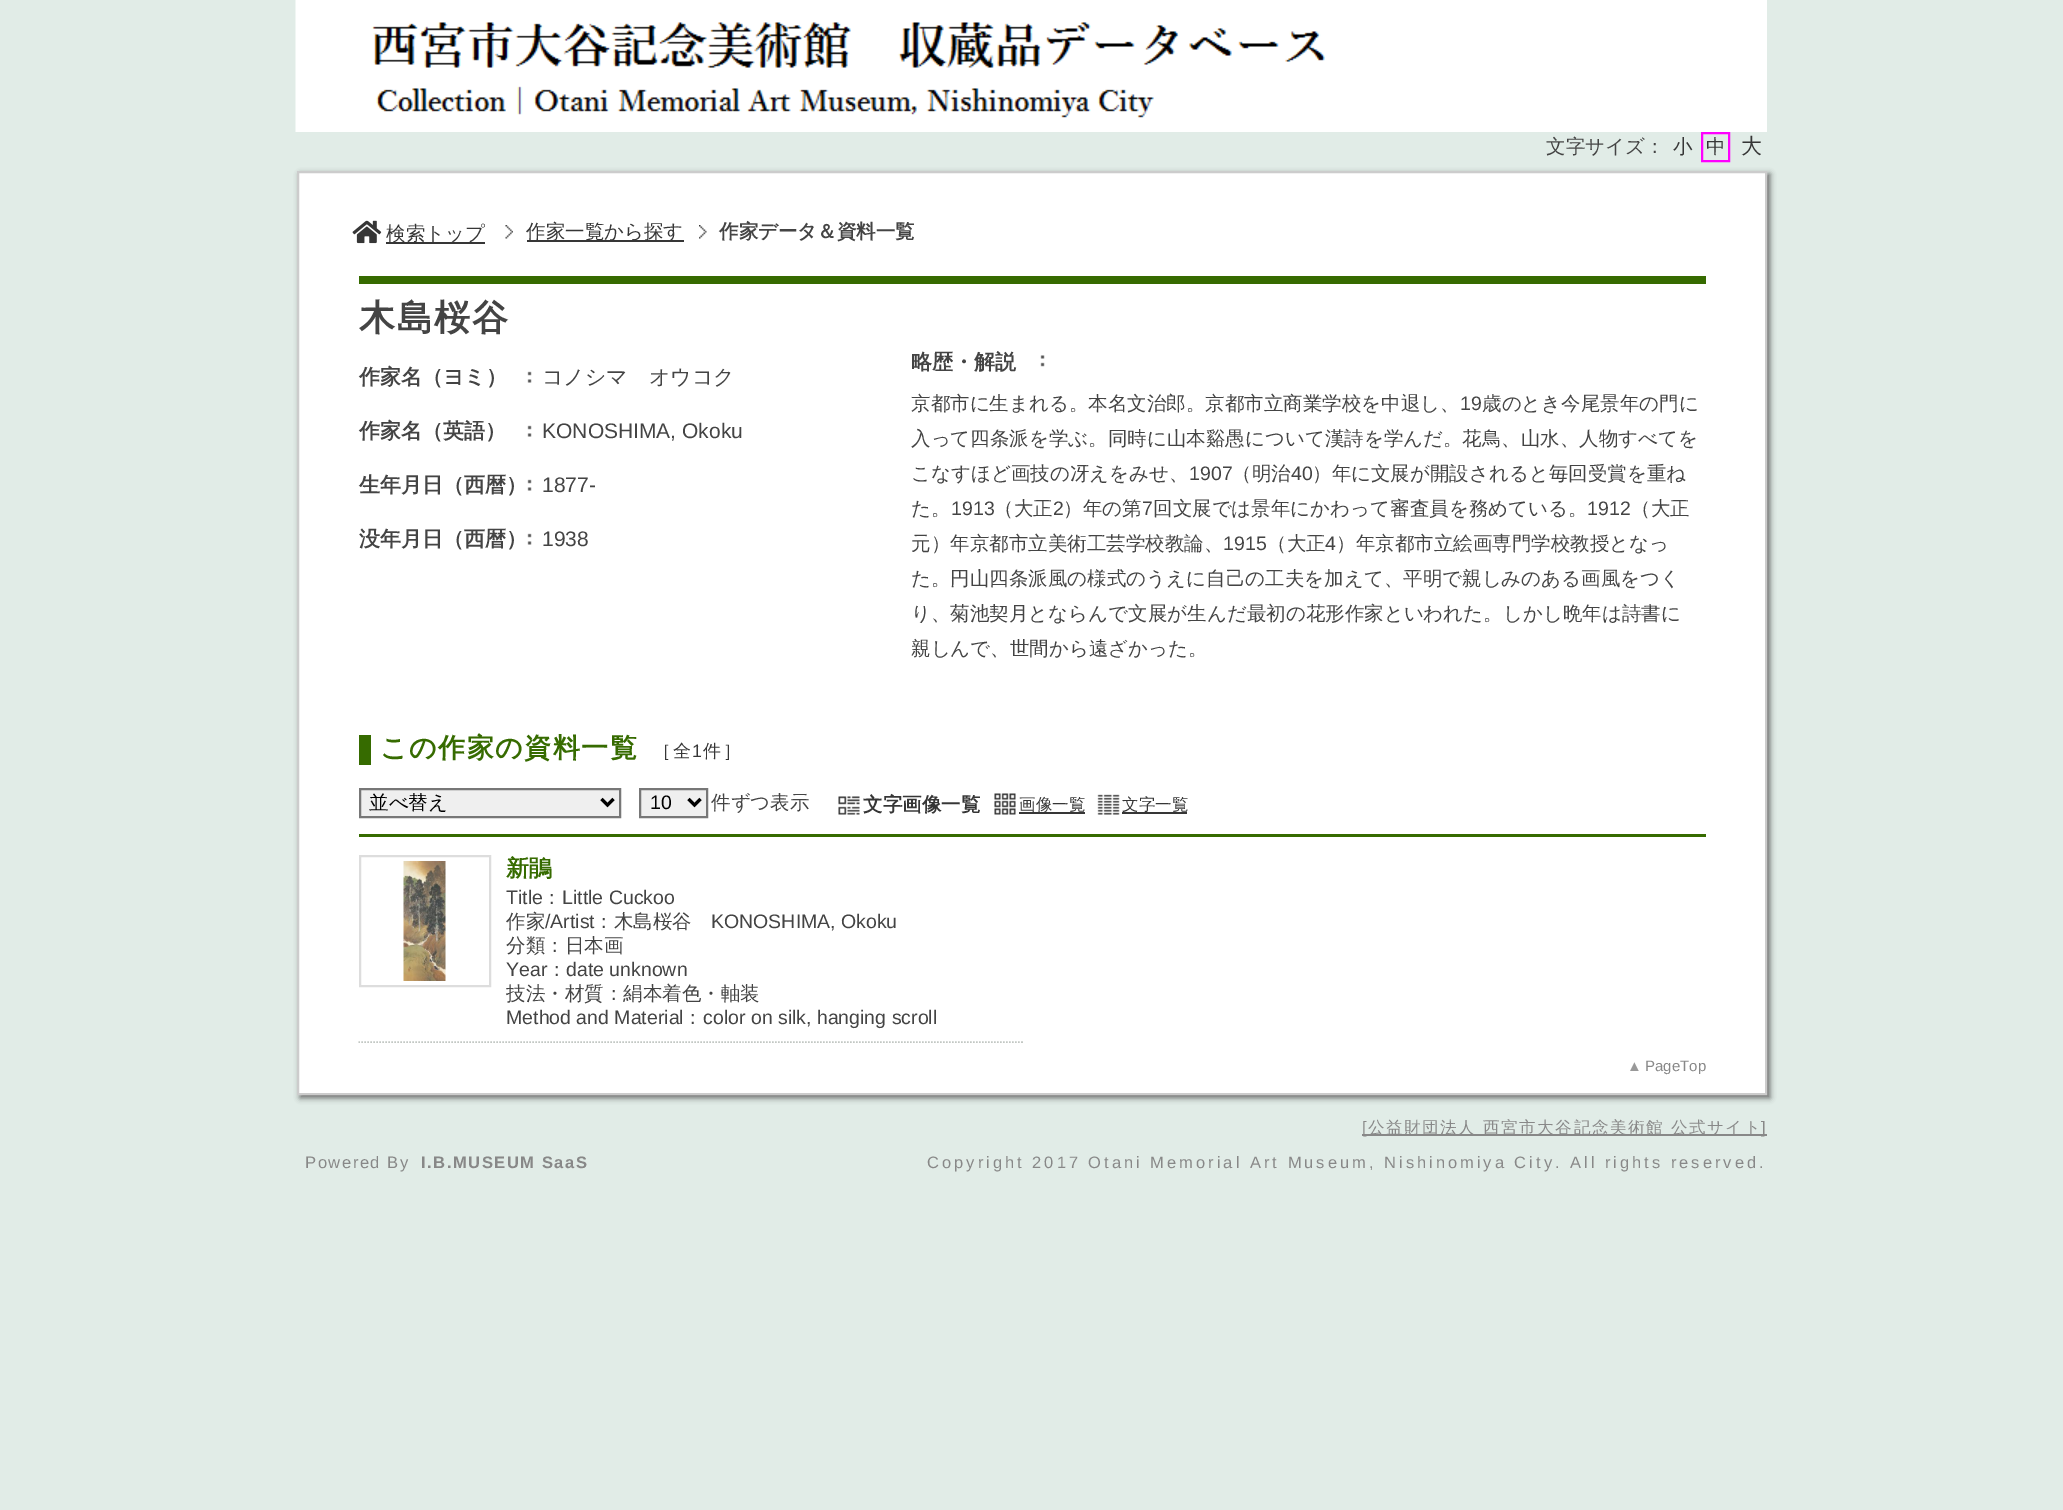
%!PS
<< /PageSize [2063 1510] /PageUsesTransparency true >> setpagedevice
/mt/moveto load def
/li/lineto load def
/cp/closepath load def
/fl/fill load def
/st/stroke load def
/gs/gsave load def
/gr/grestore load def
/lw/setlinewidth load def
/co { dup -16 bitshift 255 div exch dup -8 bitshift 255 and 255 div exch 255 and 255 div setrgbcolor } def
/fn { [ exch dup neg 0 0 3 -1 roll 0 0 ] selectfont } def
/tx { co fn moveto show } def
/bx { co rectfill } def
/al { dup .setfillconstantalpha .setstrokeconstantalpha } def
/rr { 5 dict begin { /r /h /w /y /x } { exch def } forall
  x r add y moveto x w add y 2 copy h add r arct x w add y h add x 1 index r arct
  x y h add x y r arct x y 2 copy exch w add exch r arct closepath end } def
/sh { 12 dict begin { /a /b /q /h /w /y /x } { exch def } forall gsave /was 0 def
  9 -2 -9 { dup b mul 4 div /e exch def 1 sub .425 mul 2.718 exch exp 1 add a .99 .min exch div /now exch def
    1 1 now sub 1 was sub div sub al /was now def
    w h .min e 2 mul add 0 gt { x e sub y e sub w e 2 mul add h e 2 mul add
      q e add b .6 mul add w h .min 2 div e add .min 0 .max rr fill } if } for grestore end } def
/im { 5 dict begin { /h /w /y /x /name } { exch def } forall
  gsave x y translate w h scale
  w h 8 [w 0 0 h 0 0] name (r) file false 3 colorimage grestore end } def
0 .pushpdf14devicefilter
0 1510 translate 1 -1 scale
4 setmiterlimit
0 0 2063 1510 16#E1ECE7 bx
(media/1.raw) 295 0 1472 132 im
16#FF00FF co
2 lw
1702 133 27 28 rectstroke
16#666666 co
300 174 1470 924 0 3 1 sh
16#FFFFFF co
298 172 mt 1766 172 li 1766 1094 li 298 1094 li cp gs fl gr
16#CCCCCC co
st
(media/2.raw) 352 220 30 24 im
386 242 99 2 16#363636 bx
(media/3.raw) 505 225 8 14 im
527 240 157 2 16#363636 bx
(media/4.raw) 699 225 8 14 im
359 276 1347 8 16#366B00 bx
(media/5.raw) 527 371 5 12 im
(media/5.raw) 527 425 5 12 im
(media/5.raw) 527 479 5 12 im
(media/5.raw) 527 533 5 12 im
(media/6.raw) 1040 355 5 12 im
359 735 12 30 16#366B00 bx
16#EFEFEF co
360 789 mt 620 789 li 620 817 li 360 817 li cp gs fl gr
16#777777 co
st
16#000000 co
3 lw
601.5 799 mt 607.5 805 li 613.5 799 li st
16#EFEFEF co
640 789 mt 707 789 li 707 817 li 640 817 li cp gs fl gr
16#777777 co
2 lw
st
16#000000 co
3 lw
688.5 799 mt 694.5 805 li 700.5 799 li st
(media/7.raw) 838 796 22 19 im
(media/8.raw) 994 793 22 22 im
1019 812 66 2 16#363636 bx
(media/9.raw) 1097 794 23 21 im
1122 812 65 2 16#363636 bx
359 834 1347 3 16#366B00 bx
16#C2C7C3 co
1.5 lw
[1.5 1.5] 0 setdash
358.5 1042 mt 1023 1042 li st
16#DDDDDD co
2 lw
[] 0 setdash
360 856 130 130 rectstroke
(media/10.raw) 403 861 43 120 im
1362 1134 405 2 16#888888 bx
(文字サイズ：) 1546 153 /WenQuanYiZenHei-Medium 19.5 16#444444 tx
(小) 1673 153 /WenQuanYiZenHei-Medium 19.5 16#363636 tx
(中) 1706 153 /WenQuanYiZenHei-Medium 19.5 16#363636 tx
(大) 1741 153 /WenQuanYiZenHei-Medium 21 16#363636 tx
(検索トップ) 386 240 /WenQuanYiZenHei-Medium 19.5 16#363636 tx
(作家一覧から探す) 526 238 /WenQuanYiZenHei-Medium 19.5 16#363636 tx
(作家データ＆資料一覧) 719 238 /WenQuanYiZenHei-Bold 19.5 16#444444 tx
/WenQuanYiZenHei-Bold 36 fn
359 330 mt 1.5 0 (木島桜谷) ashow
(作家名（ヨミ）) 359 384 /WenQuanYiZenHei-Bold 21 16#444444 tx
(コノシマ　オウコク) 542 384 /WenQuanYiZenHei-Medium 21 16#444444 tx
(作家名（英語）) 359 438 /WenQuanYiZenHei-Bold 21 16#444444 tx
(KONOSHIMA, Okoku) 542 438 /LiberationSans-Regular 21 16#444444 tx
(生年月日（西暦）) 359 492 /WenQuanYiZenHei-Bold 21 16#444444 tx
(1877-) 542 492 /LiberationSans-Regular 21 16#444444 tx
(没年月日（西暦）) 359 546 /WenQuanYiZenHei-Bold 21 16#444444 tx
(1938) 542 546 /LiberationSans-Regular 21 16#444444 tx
(略歴・解説) 911 369 /WenQuanYiZenHei-Bold 21 16#444444 tx
(京都市に生まれる。本名文治郎。京都市立商業学校を中退し、) 911 410 /WenQuanYiZenHei-Medium 19.5 16#444444 tx
(19) 1460 410 /LiberationSans-Regular 19.5 16#444444 tx
(歳のとき今尾景年の門に) 1482 410 /WenQuanYiZenHei-Medium 19.5 16#444444 tx
(入って四条派を学ぶ。同時に山本谿愚について漢詩を学んだ。花鳥、山水、人物すべてを) 911 445 /WenQuanYiZenHei-Medium 19.5 16#444444 tx
(こなすほど画技の冴えをみせ、) 911 480 /WenQuanYiZenHei-Medium 19.5 16#444444 tx
(1907) 1189 480 /LiberationSans-Regular 19.5 16#444444 tx
(（明治) 1232 480 /WenQuanYiZenHei-Medium 19.5 16#444444 tx
(40) 1291 480 /LiberationSans-Regular 19.5 16#444444 tx
(）年に文展が開設されると毎回受賞を重ね) 1312 480 /WenQuanYiZenHei-Medium 19.5 16#444444 tx
(た。) 911 515 /WenQuanYiZenHei-Medium 19.5 16#444444 tx
(1913) 951 515 /LiberationSans-Regular 19.5 16#444444 tx
(（大正) 994 515 /WenQuanYiZenHei-Medium 19.5 16#444444 tx
(2) 1053 515 /LiberationSans-Regular 19.5 16#444444 tx
(）年の第) 1063 515 /WenQuanYiZenHei-Medium 19.5 16#444444 tx
(7) 1142 515 /LiberationSans-Regular 19.5 16#444444 tx
(回文展では景年にかわって審査員を務めている。) 1153 515 /WenQuanYiZenHei-Medium 19.5 16#444444 tx
(1912) 1587 515 /LiberationSans-Regular 19.5 16#444444 tx
(（大正) 1631 515 /WenQuanYiZenHei-Medium 19.5 16#444444 tx
(元）年京都市立美術工芸学校教論、) 911 550 /WenQuanYiZenHei-Medium 19.5 16#444444 tx
(1915) 1223 550 /LiberationSans-Regular 19.5 16#444444 tx
(（大正) 1267 550 /WenQuanYiZenHei-Medium 19.5 16#444444 tx
(4) 1325 550 /LiberationSans-Regular 19.5 16#444444 tx
(）年京都市立絵画専門学校教授となっ) 1336 550 /WenQuanYiZenHei-Medium 19.5 16#444444 tx
(た。円山四条派風の様式のうえに自己の工夫を加えて、平明で親しみのある画風をつく) 911 585 /WenQuanYiZenHei-Medium 19.5 16#444444 tx
(り、菊池契月とならんで文展が生んだ最初の花形作家といわれた。しかし晩年は詩書に) 911 620 /WenQuanYiZenHei-Medium 19.5 16#444444 tx
(親しんで、世間から遠ざかった。) 911 655 /WenQuanYiZenHei-Medium 19.5 16#444444 tx
/WenQuanYiZenHei-Bold 27 fn
16#366B00 co
380 757 mt 1.5 0 (この作家の資料一覧) ashow
/WenQuanYiZenHei-Medium 18 fn
16#363636 co
653 757 mt 1.5 0 (［全) ashow
/LiberationSans-Regular 18 fn
692 757 mt 1.5 0 (1) ashow
/WenQuanYiZenHei-Medium 18 fn
703 757 mt 1.5 0 (件］) ashow
(並べ替え) 369 809 /WenQuanYiZenHei-Medium 19.5 16#000000 tx
(10) 650 809 /LiberationSans-Regular 19.5 16#000000 tx
(件ずつ表示) 711 809 /WenQuanYiZenHei-Medium 19.5 16#444444 tx
(文字画像一覧) 863 811 /WenQuanYiZenHei-Bold 19.5 16#363636 tx
(画像一覧) 1019 810 /WenQuanYiZenHei-Medium 16.5 16#363636 tx
(文字一覧) 1122 810 /WenQuanYiZenHei-Medium 16.5 16#363636 tx
(新鵑) 506 876 /WenQuanYiZenHei-Bold 23 16#366B00 tx
(Title) 506 904 /LiberationSans-Regular 19.5 16#444444 tx
(：) 542 904 /WenQuanYiZenHei-Medium 19.5 16#444444 tx
(Little Cuckoo) 562 904 /LiberationSans-Regular 19.5 16#444444 tx
(作家) 506 928 /WenQuanYiZenHei-Medium 19.5 16#444444 tx
(/Artist) 545 928 /LiberationSans-Regular 19.5 16#444444 tx
(：木島桜谷) 594 928 /WenQuanYiZenHei-Medium 19.5 16#444444 tx
(KONOSHIMA, Okoku) 711 928 /LiberationSans-Regular 19.5 16#444444 tx
(分類：日本画) 506 952 /WenQuanYiZenHei-Medium 19.5 16#444444 tx
(Year) 506 976 /LiberationSans-Regular 19.5 16#444444 tx
(：) 547 976 /WenQuanYiZenHei-Medium 19.5 16#444444 tx
(date unknown) 566 976 /LiberationSans-Regular 19.5 16#444444 tx
(技法・材質：絹本着色・軸装) 506 1000 /WenQuanYiZenHei-Medium 19.5 16#444444 tx
(Method and Material) 506 1024 /LiberationSans-Regular 19.5 16#444444 tx
(：) 683 1024 /WenQuanYiZenHei-Medium 19.5 16#444444 tx
(color on silk, hanging scroll) 703 1024 /LiberationSans-Regular 19.5 16#444444 tx
(▲) 1627 1071 /LiberationSans-Regular 15 16#999999 tx
(PageTop) 1645 1071 /LiberationSans-Regular 15 16#888888 tx
/LiberationSans-Regular 16.6 fn
1362 1133 mt 1.5 0 ([) ashow
/WenQuanYiZenHei-Medium 16.6 fn
1368 1133 mt 1.5 0 (公益財団法人 西宮市大谷記念美術館 公式サイト) ashow
/LiberationSans-Regular 16.6 fn
1761 1133 mt 1.5 0 (]) ashow
305 1168 mt 1.5 0 (Powered By) ashow
/LiberationSans-Bold 16.6 fn
421 1168 mt 1.5 0 (I.B.MUSEUM SaaS) ashow
/LiberationSans-Regular 16.5 fn
927 1168 mt 3 0 (Copyright 2017 Otani Memorial Art Museum, Nishinomiya City. All rights reserved.) ashow
.poppdf14devicefilter showpage
